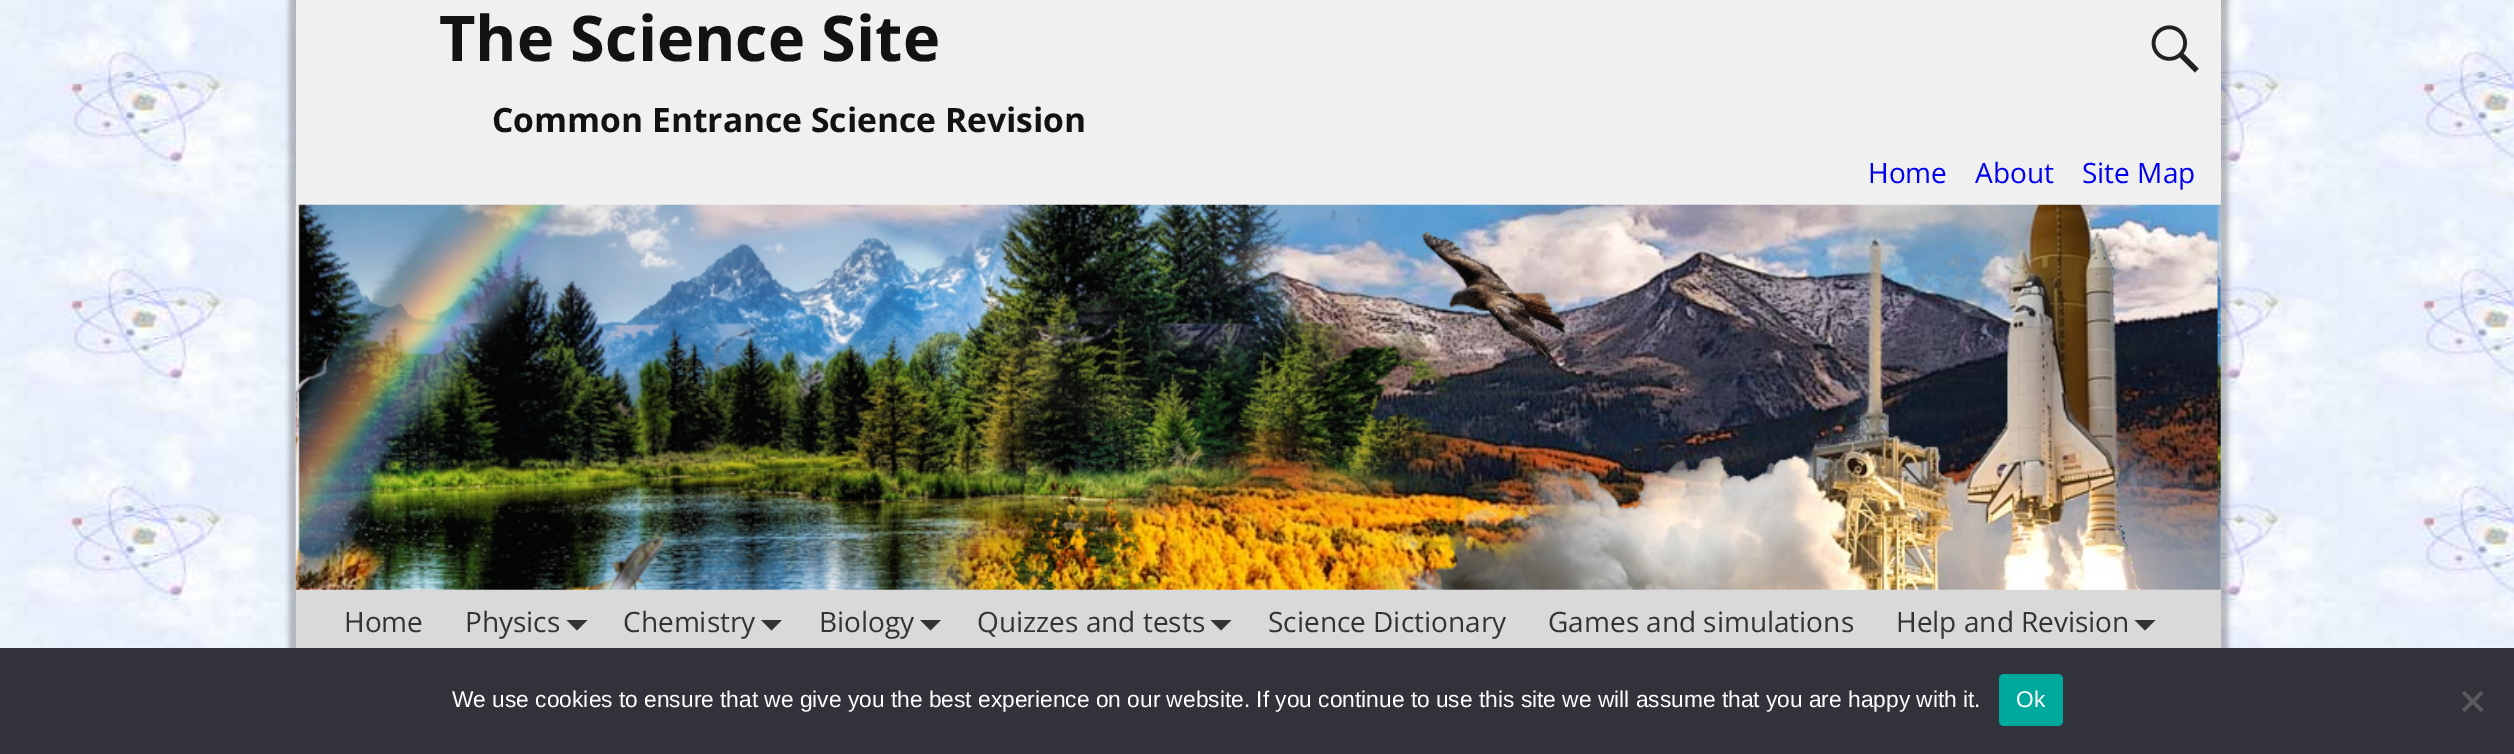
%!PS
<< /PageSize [2514 754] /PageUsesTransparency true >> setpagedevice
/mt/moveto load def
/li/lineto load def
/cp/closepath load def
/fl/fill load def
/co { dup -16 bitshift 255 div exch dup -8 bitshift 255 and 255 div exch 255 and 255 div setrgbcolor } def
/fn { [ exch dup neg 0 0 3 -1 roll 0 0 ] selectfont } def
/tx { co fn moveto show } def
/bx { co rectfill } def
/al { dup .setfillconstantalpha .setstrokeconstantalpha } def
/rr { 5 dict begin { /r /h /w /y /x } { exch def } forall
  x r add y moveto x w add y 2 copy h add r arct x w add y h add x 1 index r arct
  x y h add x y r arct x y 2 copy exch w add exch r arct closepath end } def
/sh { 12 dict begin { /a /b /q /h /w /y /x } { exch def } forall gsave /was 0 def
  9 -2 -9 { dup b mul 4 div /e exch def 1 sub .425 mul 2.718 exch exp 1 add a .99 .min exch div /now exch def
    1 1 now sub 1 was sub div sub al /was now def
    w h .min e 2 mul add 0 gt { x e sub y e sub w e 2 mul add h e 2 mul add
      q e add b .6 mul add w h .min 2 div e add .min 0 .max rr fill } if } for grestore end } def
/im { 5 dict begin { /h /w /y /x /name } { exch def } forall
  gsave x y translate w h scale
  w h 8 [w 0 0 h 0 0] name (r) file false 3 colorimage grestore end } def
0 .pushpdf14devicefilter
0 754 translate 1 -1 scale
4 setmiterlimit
0 0 2514 754 16#FFFFFF bx
(media/1.raw) 0 0 2514 648 im
16#000000 co
289 -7 1939 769 0 2.5 .25 sh
296 0 1925 590 16#F0F0F0 bx
(media/2.raw) 2151 25 48 48 im
(media/3.raw) 295 204 1926 386 im
296 590 1925 58 16#D9D9D9 bx
16#333333 co
566.5 620 mt 587.5 620 li 577 630.5 li cp fl
761 620 mt 782 620 li 771.5 630.5 li cp fl
920 620 mt 941 620 li 930.5 630.5 li cp fl
1210.5 620 mt 1231.5 620 li 1221 630.5 li cp fl
2134.5 620 mt 2155.5 620 li 2145 630.5 li cp fl
0 648 2514 106 16#32323A bx
16#00A99D co
1999 674 64 52 5 rr fl
16#59595D co
2481 691 mt 2483.5 693.5 li 2464.5 712 li 2462 709.5 li cp fl
2462 693.5 mt 2464.5 691 li 2483.5 709.5 li 2481 712 li cp fl
(The Science Site) 439 61 /OpenSans-Bold 63 16#121212 tx
(Common Entrance Science Revision) 492 132 /OpenSans-Bold 33.6 16#121212 tx
(Home) 1868 183 /OpenSans-Regular 28 16#0000EE tx
(About) 1975 183 /OpenSans-Regular 28 16#0000EE tx
(Site Map) 2082 183 /OpenSans-Regular 28 16#0000EE tx
(Home) 344 632 /OpenSans-Regular 28 16#333333 tx
(Physics) 465 632 /OpenSans-Regular 28 16#333333 tx
(Chemistry) 623 632 /OpenSans-Regular 28 16#333333 tx
(Biology) 819 632 /OpenSans-Regular 28 16#333333 tx
(Quizzes and tests) 977 632 /OpenSans-Regular 28 16#333333 tx
(Science Dictionary) 1268 632 /OpenSans-Regular 28 16#333333 tx
(Games and simulations) 1548 632 /OpenSans-Regular 28 16#333333 tx
(Help and Revision) 1896 632 /OpenSans-Regular 28 16#333333 tx
(We use cookies to ensure that we give you the best experience on our website. If you continue to use this site we will assume that you are happy with it.) 452 707 /LiberationSans-Regular 22.75 16#FFFFFF tx
(Ok) 2016 707 /LiberationSans-Regular 22.75 16#FFFFFF tx
.poppdf14devicefilter showpage
